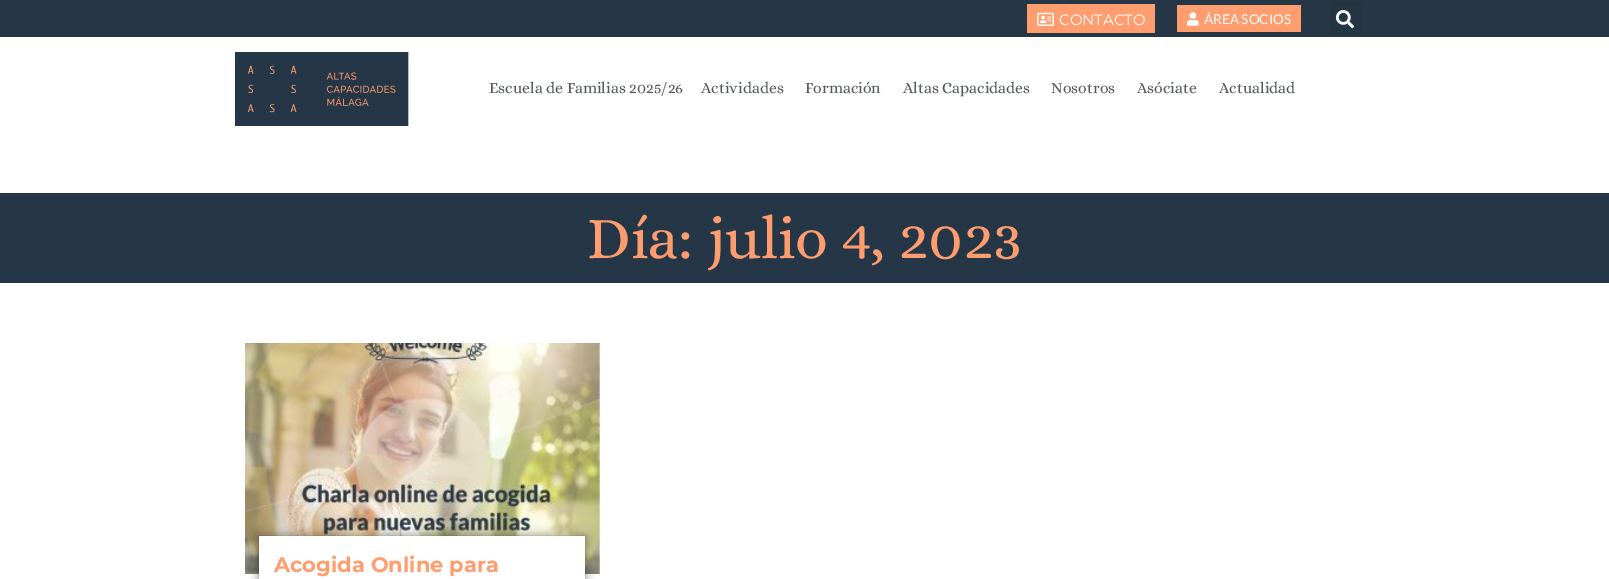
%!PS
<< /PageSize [1609 579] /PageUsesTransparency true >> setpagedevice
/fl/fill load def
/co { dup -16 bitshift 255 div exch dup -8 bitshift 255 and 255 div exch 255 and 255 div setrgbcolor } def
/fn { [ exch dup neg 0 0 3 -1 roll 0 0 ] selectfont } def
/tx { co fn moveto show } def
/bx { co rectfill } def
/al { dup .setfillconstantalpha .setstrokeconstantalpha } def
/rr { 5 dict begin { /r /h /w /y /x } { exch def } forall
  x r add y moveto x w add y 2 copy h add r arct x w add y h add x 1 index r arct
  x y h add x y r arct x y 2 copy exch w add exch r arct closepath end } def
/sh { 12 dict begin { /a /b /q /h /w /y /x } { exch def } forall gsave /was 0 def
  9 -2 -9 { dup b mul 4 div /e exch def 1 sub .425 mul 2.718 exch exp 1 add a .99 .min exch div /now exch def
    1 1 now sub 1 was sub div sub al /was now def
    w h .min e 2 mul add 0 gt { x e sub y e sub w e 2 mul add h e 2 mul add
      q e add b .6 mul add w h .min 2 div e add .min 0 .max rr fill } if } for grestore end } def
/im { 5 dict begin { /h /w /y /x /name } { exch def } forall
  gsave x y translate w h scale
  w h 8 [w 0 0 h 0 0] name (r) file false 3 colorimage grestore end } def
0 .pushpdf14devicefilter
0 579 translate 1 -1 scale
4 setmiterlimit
0 0 1609 579 16#FFFFFF bx
0 0 1609 37 16#253746 bx
1027 4 128 29 16#FF9D6E bx
(media/1.raw) 1037 12 17 14 im
1177 5 124 27 16#FF9D6E bx
(media/2.raw) 1187 12 12 14 im
16#233443 co
1329 2 33 33 3 rr fl
(media/3.raw) 1335 10 19 19 im
(media/4.raw) 235 52 174 74 im
0 193 1609 90 16#253746 bx
(media/5.raw) 245 343 355 231 im
16#000000 co
259 536 326 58 0 5 .5 sh
259 536 326 43 16#FFFFFF bx
(CONTACTO) 1059 25 /Montserrat-Regular 15 16#FFFFFF tx
(ÁREA SOCIOS) 1204 24 /Lato-Regular 13.5 16#FFFFFF tx
(Escuela de Familias 2025/26) 489 93 /Alice-Regular 15.75 16#54595F tx
(Actividades) 701 93 /Alice-Regular 15.75 16#54595F tx
(Formación) 805 93 /Alice-Regular 15.75 16#54595F tx
(Altas Capacidades) 903 93 /Alice-Regular 15.75 16#54595F tx
(Nosotros) 1051 93 /Alice-Regular 15.75 16#54595F tx
(Asóciate) 1137 93 /Alice-Regular 15.75 16#54595F tx
(Actualidad) 1219 93 /Alice-Regular 15.75 16#54595F tx
(Día: julio 4, 2023) 587 258 /Alice-Regular 60 16#FF9D6E tx
(Acogida Online para) 274 572 /Montserrat-Bold 21 16#FF9D6E tx
.poppdf14devicefilter showpage
